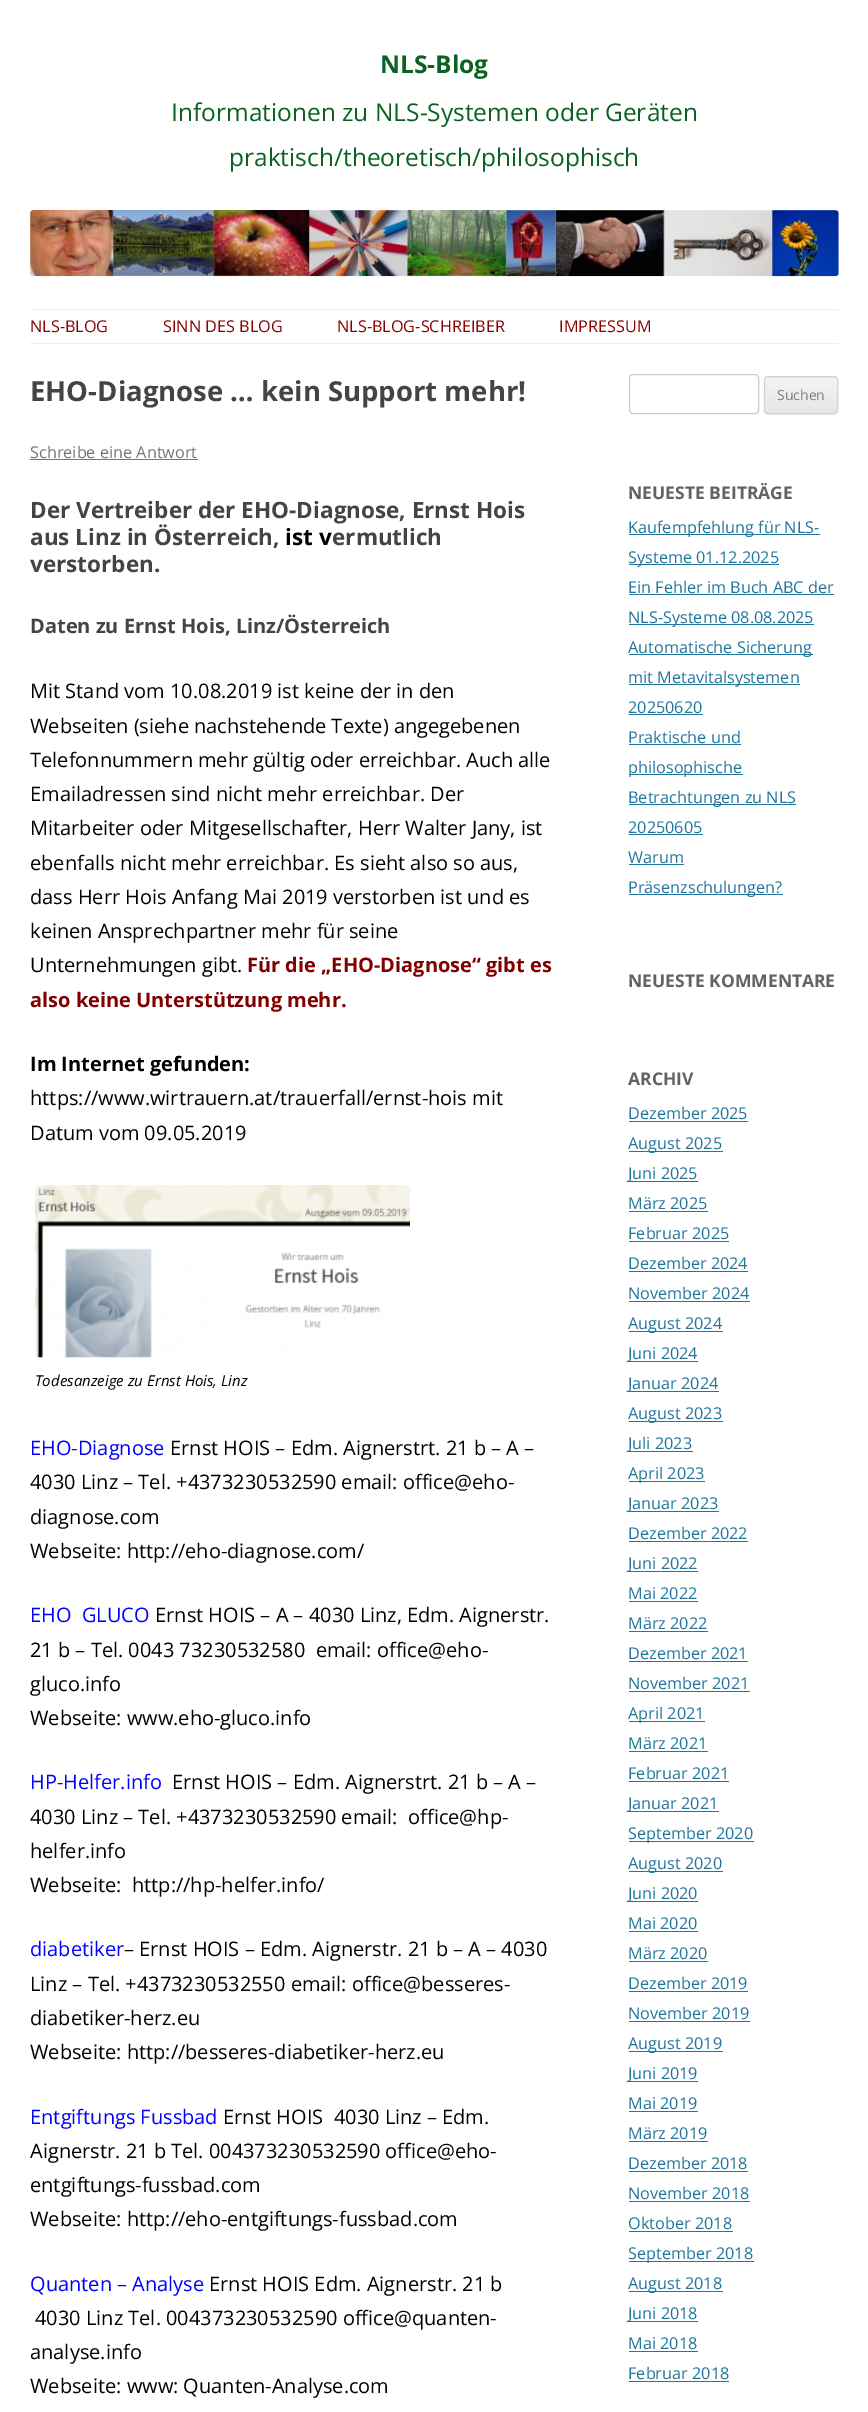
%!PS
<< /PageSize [868 2412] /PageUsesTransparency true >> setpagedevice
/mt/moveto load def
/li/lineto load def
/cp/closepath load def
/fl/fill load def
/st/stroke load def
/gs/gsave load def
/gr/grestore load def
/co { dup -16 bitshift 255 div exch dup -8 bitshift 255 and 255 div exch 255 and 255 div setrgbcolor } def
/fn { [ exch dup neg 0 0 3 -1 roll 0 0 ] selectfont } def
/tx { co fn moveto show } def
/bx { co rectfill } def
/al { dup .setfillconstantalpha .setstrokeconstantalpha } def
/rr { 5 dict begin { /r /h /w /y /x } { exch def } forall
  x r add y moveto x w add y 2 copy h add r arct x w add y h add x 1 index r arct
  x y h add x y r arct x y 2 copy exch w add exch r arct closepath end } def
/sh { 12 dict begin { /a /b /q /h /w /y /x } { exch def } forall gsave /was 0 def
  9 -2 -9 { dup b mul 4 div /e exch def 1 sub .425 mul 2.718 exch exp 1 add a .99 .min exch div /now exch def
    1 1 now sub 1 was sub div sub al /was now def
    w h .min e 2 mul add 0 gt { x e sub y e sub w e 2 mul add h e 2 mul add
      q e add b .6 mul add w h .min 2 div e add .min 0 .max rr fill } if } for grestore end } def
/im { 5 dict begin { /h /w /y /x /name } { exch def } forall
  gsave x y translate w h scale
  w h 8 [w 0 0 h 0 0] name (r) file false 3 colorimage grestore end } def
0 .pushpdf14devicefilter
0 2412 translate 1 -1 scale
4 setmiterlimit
0 0 868 2412 16#FFFFFF bx
(media/1.raw) 30 210 809 67 im
30 309 809 1 16#EDEDED bx
30 343 809 1 16#EDEDED bx
30 459 168 1 16#757575 bx
(media/2.raw) 35 1185 375 173 im
16#CCCCCC co
629.5 374.5 129 39 3.5 rr st
16#404040 co
764 378 74 37 4 1 .1 sh
16#E6E6E6 co
764 376 74 38 4 rr fl
gs
764 376 74 38 4 rr clip newpath
gs 764 378 mt 838 378 li 838 413 li 764 413 li cp clip newpath
<< /ShadingType 2 /ColorSpace /DeviceRGB /Coords [801 378 801 413] /Extend [true true] /Function << /FunctionType 2 /Domain [0 1] /C0 [.957 .957 .957] /C1 [.902 .902 .902] /N 1 >> >> shfill gr
gr
16#D2D2D2 co
764.5 376.5 73 37 3.5 rr st
629 534 191 1 16#21759B bx
629 564 150 1 16#21759B bx
629 594 205 1 16#21759B bx
629 624 185 1 16#21759B bx
629 654 184 1 16#21759B bx
629 684 171 1 16#21759B bx
629 714 74 1 16#21759B bx
629 744 112 1 16#21759B bx
629 774 114 1 16#21759B bx
629 804 167 1 16#21759B bx
629 834 74 1 16#21759B bx
629 864 55 1 16#21759B bx
629 894 154 1 16#21759B bx
629 1121 119 1 16#21759B bx
629 1151 94 1 16#21759B bx
629 1181 69 1 16#21759B bx
629 1211 79 1 16#21759B bx
629 1241 100 1 16#21759B bx
629 1271 119 1 16#21759B bx
629 1301 121 1 16#21759B bx
629 1331 94 1 16#21759B bx
629 1361 69 1 16#21759B bx
629 1391 90 1 16#21759B bx
629 1421 94 1 16#21759B bx
629 1451 64 1 16#21759B bx
629 1481 76 1 16#21759B bx
629 1511 90 1 16#21759B bx
629 1541 119 1 16#21759B bx
629 1571 69 1 16#21759B bx
629 1601 69 1 16#21759B bx
629 1631 79 1 16#21759B bx
629 1661 119 1 16#21759B bx
629 1691 121 1 16#21759B bx
629 1721 76 1 16#21759B bx
629 1751 79 1 16#21759B bx
629 1781 100 1 16#21759B bx
629 1811 90 1 16#21759B bx
629 1841 125 1 16#21759B bx
629 1871 94 1 16#21759B bx
629 1901 69 1 16#21759B bx
629 1931 69 1 16#21759B bx
629 1961 79 1 16#21759B bx
629 1991 119 1 16#21759B bx
629 2021 121 1 16#21759B bx
629 2051 94 1 16#21759B bx
629 2081 69 1 16#21759B bx
629 2111 69 1 16#21759B bx
629 2141 79 1 16#21759B bx
629 2171 119 1 16#21759B bx
629 2201 121 1 16#21759B bx
629 2231 104 1 16#21759B bx
629 2261 125 1 16#21759B bx
629 2291 94 1 16#21759B bx
629 2321 69 1 16#21759B bx
629 2351 69 1 16#21759B bx
629 2381 100 1 16#21759B bx
(NLS-Blog) 380 73 /OpenSans-Bold 24.5 16#0B6121 tx
(Informationen zu NLS-Systemen oder Geräten) 171 121 /OpenSans-Regular 24.5 16#0B6121 tx
(praktisch/theoretisch/philosophisch) 229 166 /OpenSans-Regular 24.5 16#0B6121 tx
(NLS-BLOG) 30 332 /OpenSans-Regular 16.25 16#8B0000 tx
(SINN DES BLOG) 163 332 /OpenSans-Regular 16.25 16#8B0000 tx
(NLS-BLOG-SCHREIBER) 337 332 /OpenSans-Regular 16.25 16#8B0000 tx
(IMPRESSUM) 559 332 /OpenSans-Regular 16.25 16#8B0000 tx
(EHO-Diagnose … kein Support mehr!) 30 401 /OpenSans-Bold 27.5 16#444444 tx
(Schreibe eine Antwort) 30 458 /OpenSans-Regular 16.25 16#757575 tx
(Der Vertreiber der EHO-Diagnose, Ernst Hois) 30 518 /OpenSans-Bold 22.5 16#444444 tx
(aus Linz in Österreich,) 30 545 /OpenSans-Bold 22.5 16#444444 tx
(ist v) 285 545 /OpenSans-Bold 22.5 16#000000 tx
(ermutlich) 332 545 /OpenSans-Bold 22.5 16#444444 tx
(verstorben.) 30 572 /OpenSans-Bold 22.5 16#444444 tx
(Daten zu Ernst Hois, Linz/Österreich) 30 633 /OpenSans-Bold 20 16#444444 tx
(Mit Stand vom 10.08.2019 ist keine der in den) 30 698 /OpenSans-Regular 20 16#000000 tx
(Webseiten \(siehe nachstehende Texte\) angegebenen) 30 733 /OpenSans-Regular 20 16#000000 tx
(Telefonnummern mehr gültig oder erreichbar. Auch alle) 30 767 /OpenSans-Regular 20 16#000000 tx
(Emailadressen sind nicht mehr erreichbar. Der) 30 801 /OpenSans-Regular 20 16#000000 tx
(Mitarbeiter oder Mitgesellschafter, Herr Walter Jany, ist) 30 835 /OpenSans-Regular 20 16#000000 tx
(ebenfalls nicht mehr erreichbar. Es sieht also so aus,) 30 870 /OpenSans-Regular 20 16#000000 tx
(dass Herr Hois Anfang Mai 2019 verstorben ist und es) 30 904 /OpenSans-Regular 20 16#000000 tx
(keinen Ansprechpartner mehr für seine) 30 938 /OpenSans-Regular 20 16#000000 tx
(Unternehmungen gibt.) 30 972 /OpenSans-Regular 20 16#000000 tx
(Für die „EHO-Diagnose“ gibt es) 247 972 /OpenSans-Bold 20 16#800000 tx
(also keine Unterstützung mehr.) 30 1007 /OpenSans-Bold 20 16#800000 tx
(Im Internet gefunden:) 30 1071 /OpenSans-Bold 20 16#000000 tx
(https://www.wirtrauern.at/trauerfall/ernst-hois mit) 30 1105 /OpenSans-Regular 20 16#000000 tx
(Datum vom 09.05.2019) 30 1140 /OpenSans-Regular 20 16#000000 tx
(Todesanzeige zu Ernst Hois, Linz) 35 1386 /OpenSans-Italic 15 16#000000 tx
(EHO-Diagnose) 30 1455 /OpenSans-Regular 20 16#0000FF tx
(Ernst HOIS – Edm. Aignerstrt. 21 b – A –) 170 1455 /OpenSans-Regular 20 16#000000 tx
(4030 Linz – Tel. +4373230532590 email: office@eho-) 30 1489 /OpenSans-Regular 20 16#000000 tx
(diagnose.com) 30 1524 /OpenSans-Regular 20 16#000000 tx
(Webseite: http://eho-diagnose.com/) 30 1558 /OpenSans-Regular 20 16#000000 tx
(EHO  GLUCO) 30 1622 /OpenSans-Regular 20 16#0000FF tx
(Ernst HOIS – A – 4030 Linz, Edm. Aignerstr.) 155 1622 /OpenSans-Regular 20 16#000000 tx
(21 b – Tel. 0043 73230532580  email: office@eho-) 30 1657 /OpenSans-Regular 20 16#000000 tx
(gluco.info) 30 1691 /OpenSans-Regular 20 16#000000 tx
(Webseite: www.eho-gluco.info) 30 1725 /OpenSans-Regular 20 16#000000 tx
(HP-Helfer.info) 30 1789 /OpenSans-Regular 20 16#0000FF tx
(Ernst HOIS – Edm. Aignerstrt. 21 b – A –) 172 1789 /OpenSans-Regular 20 16#000000 tx
(4030 Linz – Tel. +4373230532590 email:  office@hp-) 30 1824 /OpenSans-Regular 20 16#000000 tx
(helfer.info) 30 1858 /OpenSans-Regular 20 16#000000 tx
(Webseite:  http://hp-helfer.info/) 30 1892 /OpenSans-Regular 20 16#000000 tx
(diabetiker) 30 1956 /OpenSans-Regular 20 16#0000FF tx
(– Ernst HOIS – Edm. Aignerstr. 21 b – A – 4030) 124 1956 /OpenSans-Regular 20 16#000000 tx
(Linz – Tel. +4373230532550 email: office@besseres-) 30 1991 /OpenSans-Regular 20 16#000000 tx
(diabetiker-herz.eu) 30 2025 /OpenSans-Regular 20 16#000000 tx
(Webseite: http://besseres-diabetiker-herz.eu) 30 2059 /OpenSans-Regular 20 16#000000 tx
(Entgiftungs Fussbad) 30 2124 /OpenSans-Regular 20 16#0000FF tx
(Ernst HOIS  4030 Linz – Edm.) 223 2124 /OpenSans-Regular 20 16#000000 tx
(Aignerstr. 21 b Tel. 004373230532590 office@eho-) 30 2158 /OpenSans-Regular 20 16#000000 tx
(entgiftungs-fussbad.com) 30 2192 /OpenSans-Regular 20 16#000000 tx
(Webseite: http://eho-entgiftungs-fussbad.com) 30 2226 /OpenSans-Regular 20 16#000000 tx
(Quanten – Analyse) 30 2291 /OpenSans-Regular 20 16#0000FF tx
(Ernst HOIS Edm. Aignerstr. 21 b) 209 2291 /OpenSans-Regular 20 16#000000 tx
(4030 Linz Tel. 004373230532590 office@quanten-) 35 2325 /OpenSans-Regular 20 16#000000 tx
(analyse.info) 30 2359 /OpenSans-Regular 20 16#000000 tx
(Webseite: www: Quanten-Analyse.com) 30 2393 /OpenSans-Regular 20 16#000000 tx
(Suchen) 777 400 /OpenSans-Regular 14 16#7C7C7C tx
(NEUESTE BEITRÄGE) 628 499 /OpenSans-Bold 17.5 16#636363 tx
(Kaufempfehlung für NLS-) 628 533 /OpenSans-Regular 16.25 16#21759B tx
(Systeme 01.12.2025) 628 563 /OpenSans-Regular 16.25 16#21759B tx
(Ein Fehler im Buch ABC der) 628 593 /OpenSans-Regular 16.25 16#21759B tx
(NLS-Systeme 08.08.2025) 628 623 /OpenSans-Regular 16.25 16#21759B tx
(Automatische Sicherung) 628 653 /OpenSans-Regular 16.25 16#21759B tx
(mit Metavitalsystemen) 628 683 /OpenSans-Regular 16.25 16#21759B tx
(20250620) 628 713 /OpenSans-Regular 16.25 16#21759B tx
(Praktische und) 628 743 /OpenSans-Regular 16.25 16#21759B tx
(philosophische) 628 773 /OpenSans-Regular 16.25 16#21759B tx
(Betrachtungen zu NLS) 628 803 /OpenSans-Regular 16.25 16#21759B tx
(20250605) 628 833 /OpenSans-Regular 16.25 16#21759B tx
(Warum) 628 863 /OpenSans-Regular 16.25 16#21759B tx
(Präsenzschulungen?) 628 893 /OpenSans-Regular 16.25 16#21759B tx
(NEUESTE KOMMENTARE) 628 987 /OpenSans-Bold 17.5 16#636363 tx
(ARCHIV) 628 1085 /OpenSans-Bold 17.5 16#636363 tx
(Dezember 2025) 628 1119 /OpenSans-Regular 16.25 16#21759B tx
(August 2025) 628 1149 /OpenSans-Regular 16.25 16#21759B tx
(Juni 2025) 628 1179 /OpenSans-Regular 16.25 16#21759B tx
(März 2025) 628 1209 /OpenSans-Regular 16.25 16#21759B tx
(Februar 2025) 628 1239 /OpenSans-Regular 16.25 16#21759B tx
(Dezember 2024) 628 1269 /OpenSans-Regular 16.25 16#21759B tx
(November 2024) 628 1299 /OpenSans-Regular 16.25 16#21759B tx
(August 2024) 628 1329 /OpenSans-Regular 16.25 16#21759B tx
(Juni 2024) 628 1359 /OpenSans-Regular 16.25 16#21759B tx
(Januar 2024) 628 1389 /OpenSans-Regular 16.25 16#21759B tx
(August 2023) 628 1419 /OpenSans-Regular 16.25 16#21759B tx
(Juli 2023) 628 1449 /OpenSans-Regular 16.25 16#21759B tx
(April 2023) 628 1479 /OpenSans-Regular 16.25 16#21759B tx
(Januar 2023) 628 1509 /OpenSans-Regular 16.25 16#21759B tx
(Dezember 2022) 628 1539 /OpenSans-Regular 16.25 16#21759B tx
(Juni 2022) 628 1569 /OpenSans-Regular 16.25 16#21759B tx
(Mai 2022) 628 1599 /OpenSans-Regular 16.25 16#21759B tx
(März 2022) 628 1629 /OpenSans-Regular 16.25 16#21759B tx
(Dezember 2021) 628 1659 /OpenSans-Regular 16.25 16#21759B tx
(November 2021) 628 1689 /OpenSans-Regular 16.25 16#21759B tx
(April 2021) 628 1719 /OpenSans-Regular 16.25 16#21759B tx
(März 2021) 628 1749 /OpenSans-Regular 16.25 16#21759B tx
(Februar 2021) 628 1779 /OpenSans-Regular 16.25 16#21759B tx
(Januar 2021) 628 1809 /OpenSans-Regular 16.25 16#21759B tx
(September 2020) 628 1839 /OpenSans-Regular 16.25 16#21759B tx
(August 2020) 628 1869 /OpenSans-Regular 16.25 16#21759B tx
(Juni 2020) 628 1899 /OpenSans-Regular 16.25 16#21759B tx
(Mai 2020) 628 1929 /OpenSans-Regular 16.25 16#21759B tx
(März 2020) 628 1959 /OpenSans-Regular 16.25 16#21759B tx
(Dezember 2019) 628 1989 /OpenSans-Regular 16.25 16#21759B tx
(November 2019) 628 2019 /OpenSans-Regular 16.25 16#21759B tx
(August 2019) 628 2049 /OpenSans-Regular 16.25 16#21759B tx
(Juni 2019) 628 2079 /OpenSans-Regular 16.25 16#21759B tx
(Mai 2019) 628 2109 /OpenSans-Regular 16.25 16#21759B tx
(März 2019) 628 2139 /OpenSans-Regular 16.25 16#21759B tx
(Dezember 2018) 628 2169 /OpenSans-Regular 16.25 16#21759B tx
(November 2018) 628 2199 /OpenSans-Regular 16.25 16#21759B tx
(Oktober 2018) 628 2229 /OpenSans-Regular 16.25 16#21759B tx
(September 2018) 628 2259 /OpenSans-Regular 16.25 16#21759B tx
(August 2018) 628 2289 /OpenSans-Regular 16.25 16#21759B tx
(Juni 2018) 628 2319 /OpenSans-Regular 16.25 16#21759B tx
(Mai 2018) 628 2349 /OpenSans-Regular 16.25 16#21759B tx
(Februar 2018) 628 2379 /OpenSans-Regular 16.25 16#21759B tx
.poppdf14devicefilter showpage
